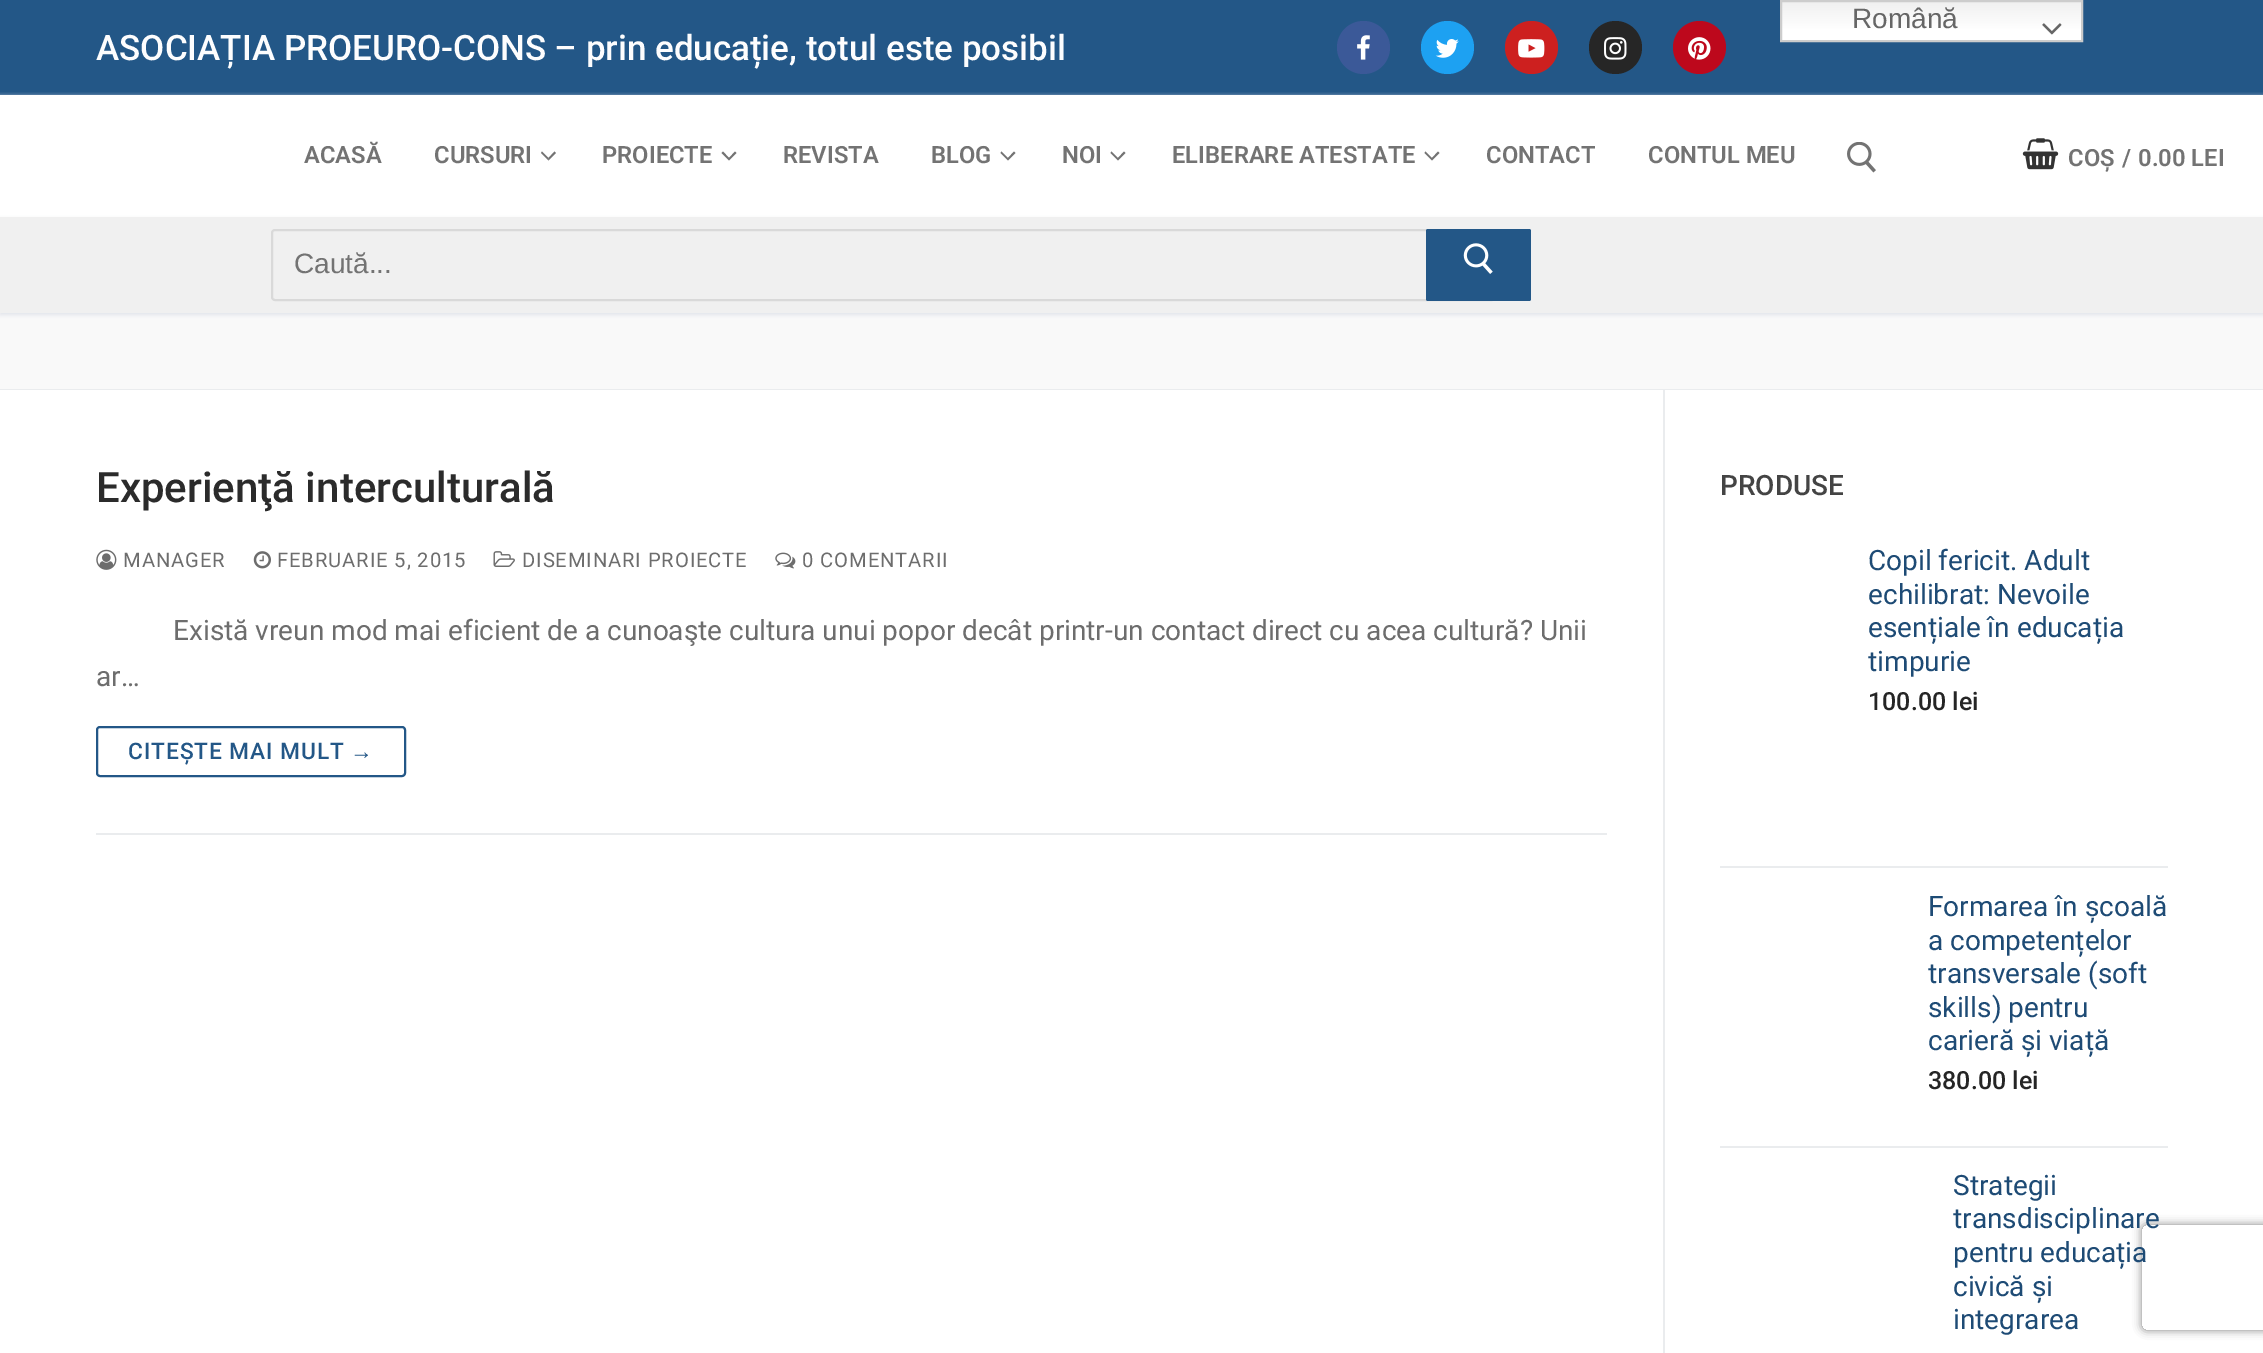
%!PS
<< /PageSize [2263 1353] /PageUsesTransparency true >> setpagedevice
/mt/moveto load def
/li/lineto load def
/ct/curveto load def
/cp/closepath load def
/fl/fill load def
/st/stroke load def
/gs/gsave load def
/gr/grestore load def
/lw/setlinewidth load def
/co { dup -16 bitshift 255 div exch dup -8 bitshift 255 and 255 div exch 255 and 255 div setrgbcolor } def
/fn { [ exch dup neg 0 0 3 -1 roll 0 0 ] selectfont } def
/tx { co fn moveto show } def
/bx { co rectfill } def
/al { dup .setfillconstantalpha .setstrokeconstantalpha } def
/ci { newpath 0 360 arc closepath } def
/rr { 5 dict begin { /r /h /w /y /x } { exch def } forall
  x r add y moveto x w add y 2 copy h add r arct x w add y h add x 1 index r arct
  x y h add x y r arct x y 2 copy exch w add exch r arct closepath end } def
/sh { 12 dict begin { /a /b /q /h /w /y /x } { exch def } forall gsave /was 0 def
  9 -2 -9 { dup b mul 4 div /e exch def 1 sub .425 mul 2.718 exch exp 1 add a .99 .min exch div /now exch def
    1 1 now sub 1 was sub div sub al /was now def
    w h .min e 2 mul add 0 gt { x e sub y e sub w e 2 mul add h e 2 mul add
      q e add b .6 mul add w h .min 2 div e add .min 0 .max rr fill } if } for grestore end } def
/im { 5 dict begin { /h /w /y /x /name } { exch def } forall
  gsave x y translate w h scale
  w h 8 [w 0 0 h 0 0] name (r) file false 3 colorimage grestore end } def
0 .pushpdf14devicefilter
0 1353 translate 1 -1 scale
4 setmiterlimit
0 0 2263 1353 16#FFFFFF bx
0 0 2263 95 16#235787 bx
gs 1782 2 mt 2081 2 li 2081 40 li 1782 40 li cp clip newpath
<< /ShadingType 2 /ColorSpace /DeviceRGB /Coords [1931 0 1931 42] /Extend [true true] /Function << /FunctionType 3 /Domain [0 1] /Functions [<< /FunctionType 2 /Domain [0 1] /C0 [.937 .937 .937] /C1 [1 1 1] /N 1 >> << /FunctionType 2 /Domain [0 1] /C0 [1 1 1] /C1 [1 1 1] /N 1 >>] /Bounds [.7] /Encode [0 1 0 1] >> >> shfill gr
16#CCCCCC co
2 lw
1781 1 301 40 rectstroke
(media/1.raw) 2042 23 20 12 im
16#3B5998 co
1363.5 47.5 26.5 ci fl
(media/2.raw) 1357 35 13 25 im
16#1DA1F2 co
1447.5 47.5 26.5 ci fl
(media/3.raw) 1435 39 24 19 im
16#CD201F co
1531.5 47.5 26.5 ci fl
(media/4.raw) 1518 39 27 19 im
16#262626 co
1615.5 47.5 26.5 ci fl
(media/5.raw) 1604 37 23 23 im
16#BD081C co
1699.5 47.5 26.5 ci fl
(media/6.raw) 1688 37 23 23 im
gs
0 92 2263 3 rectclip
16#E1E5EA co
0 96 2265 123 0 2 1 sh
gr
16#737373 co
548.5 160.5 mt 541 153 li 542 151.5 li 548.5 158 li cp fl
0.55 al
16#000000 co
556 153 mt 548.5 160.5 li 548.5 158 li 554.5 151.5 li cp fl
1 al
16#737373 co
729 160.5 mt 721.5 153 li 723 151.5 li 729 158 li cp 736.5 153 mt 729 160.5 li 729 158 li 735 151.5 li cp fl
1008 160.5 mt 1000.5 153 li 1001.5 151.5 li 1008 158 li cp 1015.5 153 mt 1008 160.5 li 1008 158 li 1014 151.5 li cp fl
1118 160.5 mt 1110.5 153 li 1111.5 151.5 li 1118 158 li cp 1125.5 153 mt 1118 160.5 li 1118 158 li 1124 151.5 li cp fl
1432 160.5 mt 1424.5 153 li 1425.5 151.5 li 1432 158 li cp 1439.5 153 mt 1432 160.5 li 1432 158 li 1438 151.5 li cp fl
(media/7.raw) 1847 142 29 31 im
(media/8.raw) 2022 138 37 32 im
0 313 2263 76 16#F9F9F9 bx
16#E1E5EA co
0 219 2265 96 0 2 1 sh
0 217 2263 96 16#F0F0F0 bx
16#D9D9D9 co
272 230 1223 70 3 rr st
16#235787 co
1426 229 105 72 2 rr fl
(media/9.raw) 1463 243 30 31 im
0 389 2263 1 16#EAECEE bx
1663 390 2 963 16#EAECEE bx
96 833 1511 2 16#EAECEE bx
(media/10.raw) 96 549 21 21 im
(media/11.raw) 253 551 18 18 im
(media/12.raw) 493 551 22 16 im
(media/13.raw) 775 552 21 17 im
16#235787 co
97 727 308 49 3 rr st
1720 866 448 2 16#EAECEE bx
1720 1146 448 2 16#EAECEE bx
gs
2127 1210 mt 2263 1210 li 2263 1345 li 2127 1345 li cp 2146 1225 mt 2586 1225 li 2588 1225 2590 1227 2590 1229 ct 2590 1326 li 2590 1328 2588 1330 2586 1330 ct 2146 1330 li 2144 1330 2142 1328 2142 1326 ct 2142 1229 li 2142 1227 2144 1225 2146 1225 ct cp eoclip newpath
16#808080 co
2142 1225 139 105 4 4.5 1 sh
gr
(Română) 1852 28 /LiberationSans-Regular 28 16#666666 tx
(ASOCIAȚIA PROEURO-CONS – prin educație, totul este posibil) 96 60 /Roboto-Medium 35 16#FDFDFE tx
(ACASĂ) 304 163 /Roboto-SemiBold 23.75 16#737373 tx
(CURSURI) 434 163 /Roboto-SemiBold 23.75 16#737373 tx
(PROIECTE) 602 163 /Roboto-SemiBold 23.75 16#737373 tx
(REVISTA) 783 163 /Roboto-SemiBold 23.75 16#737373 tx
(BLOG) 931 163 /Roboto-SemiBold 23.75 16#737373 tx
(NOI) 1062 163 /Roboto-SemiBold 23.75 16#737373 tx
(ELIBERARE ATESTATE) 1172 163 /Roboto-SemiBold 23.75 16#737373 tx
(CONTACT) 1486 163 /Roboto-SemiBold 23.75 16#737373 tx
(CONTUL MEU) 1648 163 /Roboto-SemiBold 23.75 16#737373 tx
(COȘ) 2068 166 /Roboto-SemiBold 23.75 16#737373 tx
(/) 2122 166 /Roboto-SemiBold 23.75 16#737373 tx
(0.00 LEI) 2138 166 /Roboto-SemiBold 23.75 16#737373 tx
(Caută...) 294 273 /LiberationSans-Regular 28 16#737373 tx
(Experienţă interculturală) 96 502 /Roboto-Medium 42 16#2B2B2B tx
/Roboto-Regular 20.2 fn
16#6D6D6D co
123 567 mt .9 0 (MANAGER) ashow
277 567 mt .9 0 (FEBRUARIE 5, 2015) ashow
522 567 mt .9 0 (DISEMINARI PROIECTE) ashow
802 567 mt .9 0 (0 COMENTARII) ashow
(Există vreun mod mai eficient de a cunoaşte cultura unui popor decât printr-un contact direct cu acea cultură? Unii) 173 640 /Roboto-Regular 28 16#6D6D6D tx
(ar…) 96 686 /Roboto-Regular 28 16#6D6D6D tx
/Roboto-Medium 22.75 fn
16#235787 co
128 759 mt .9 0 (CITEȘTE MAI MULT) ashow
/LiberationSans-Regular 22.75 fn
350 759 mt .9 0 (→) ashow
(PRODUSE) 1720 495 /Roboto-Medium 28 16#444444 tx
(Copil fericit. Adult) 1868 570 /Roboto-Regular 28 16#1E4B75 tx
(echilibrat: Nevoile) 1868 604 /Roboto-Regular 28 16#1E4B75 tx
(esențiale în educația) 1868 637 /Roboto-Regular 28 16#1E4B75 tx
(timpurie) 1868 671 /Roboto-Regular 28 16#1E4B75 tx
(100.00 lei) 1868 710 /Roboto-Medium 25 16#252525 tx
(Formarea în școală) 1928 916 /Roboto-Regular 28 16#1E4B75 tx
(a competențelor) 1928 950 /Roboto-Regular 28 16#1E4B75 tx
(transversale \(soft) 1928 983 /Roboto-Regular 28 16#1E4B75 tx
(skills\) pentru) 1928 1017 /Roboto-Regular 28 16#1E4B75 tx
(carieră și viață) 1928 1050 /Roboto-Regular 28 16#1E4B75 tx
(380.00 lei) 1928 1089 /Roboto-Medium 25 16#252525 tx
(Strategii) 1953 1195 /Roboto-Regular 28 16#1E4B75 tx
(transdisciplinare) 1953 1228 /Roboto-Regular 28 16#1E4B75 tx
(pentru educația) 1953 1262 /Roboto-Regular 28 16#1E4B75 tx
(civică și) 1953 1296 /Roboto-Regular 28 16#1E4B75 tx
(integrarea) 1953 1329 /Roboto-Regular 28 16#1E4B75 tx
.poppdf14devicefilter showpage
